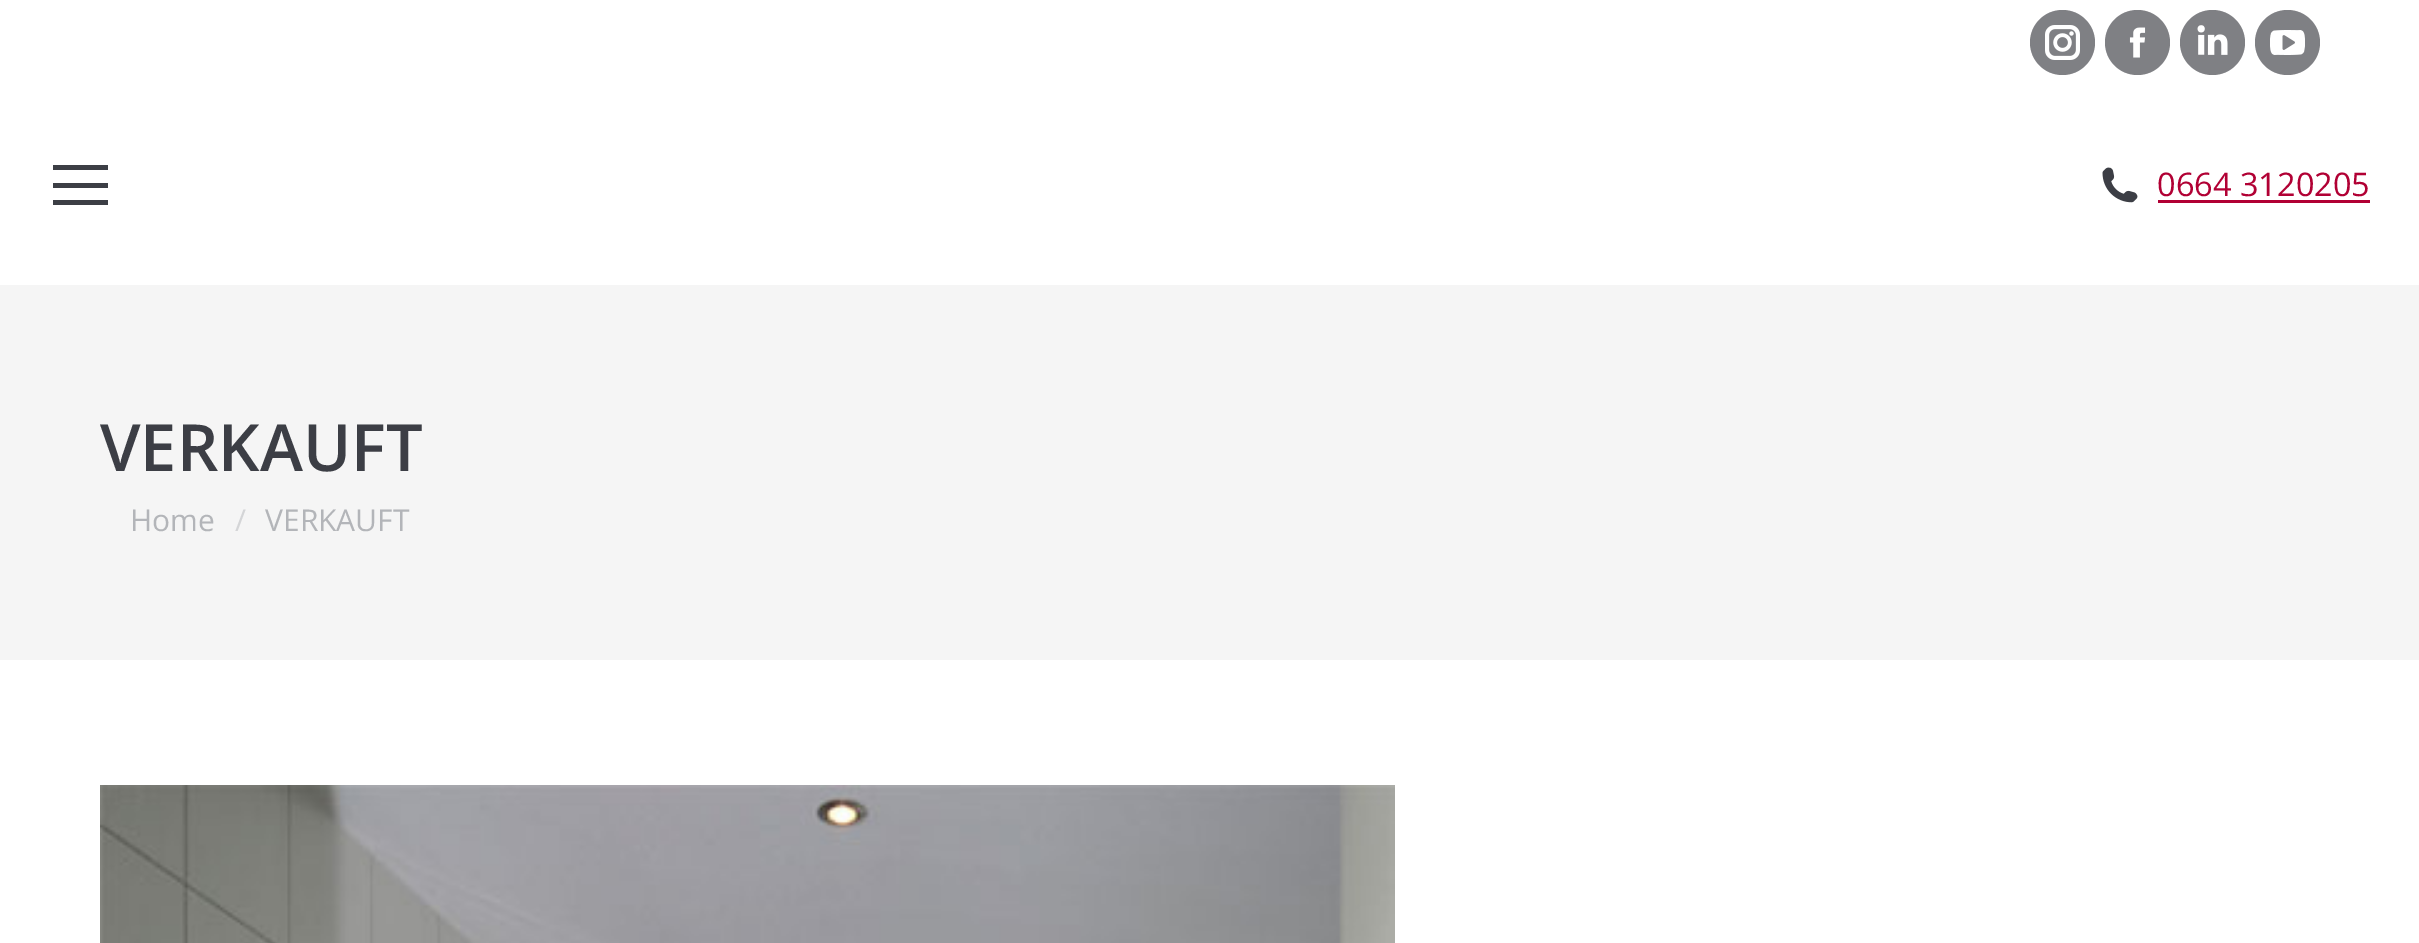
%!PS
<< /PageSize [2419 943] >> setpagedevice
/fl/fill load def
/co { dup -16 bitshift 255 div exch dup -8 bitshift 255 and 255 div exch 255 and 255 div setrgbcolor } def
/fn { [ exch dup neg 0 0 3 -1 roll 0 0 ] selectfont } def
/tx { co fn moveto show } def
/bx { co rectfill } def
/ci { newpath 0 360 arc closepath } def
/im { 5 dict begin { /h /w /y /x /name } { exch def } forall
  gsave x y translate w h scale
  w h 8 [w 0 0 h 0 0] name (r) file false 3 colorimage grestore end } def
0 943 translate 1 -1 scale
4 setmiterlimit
0 0 2419 943 16#FFFFFF bx
16#7F8084 co
2062.5 42.5 32.5 ci fl
(media/1.raw) 2045 25 35 35 im
2137.5 42.5 32.5 ci fl
(media/2.raw) 2129 27 17 31 im
2212.5 42.5 32.5 ci fl
(media/3.raw) 2197 25 31 30 im
2287.5 42.5 32.5 ci fl
(media/4.raw) 2270 30 35 25 im
53 165 55 5 16#3C3E45 bx
53 183 55 5 16#3C3E45 bx
53 200 55 5 16#3C3E45 bx
(media/5.raw) 2102 167 36 36 im
2158 200 212 3 16#B10034 bx
0 285 2419 375 16#F5F5F5 bx
(media/6.raw) 100 785 1295 158 im
(0664 3120205) 2157 196 /OpenSans-Regular 32.5 16#B10034 tx
(VERKAUFT) 100 471 /OpenSans-SemiBold 65 16#3C3E45 tx
(Home) 130 531 /OpenSans-Regular 30 16#B3B5B9 tx
(/) 235 531 /OpenSans-Regular 30 16#D4D5D7 tx
(VERKAUFT) 265 531 /OpenSans-Regular 30 16#B3B5B9 tx
showpage
